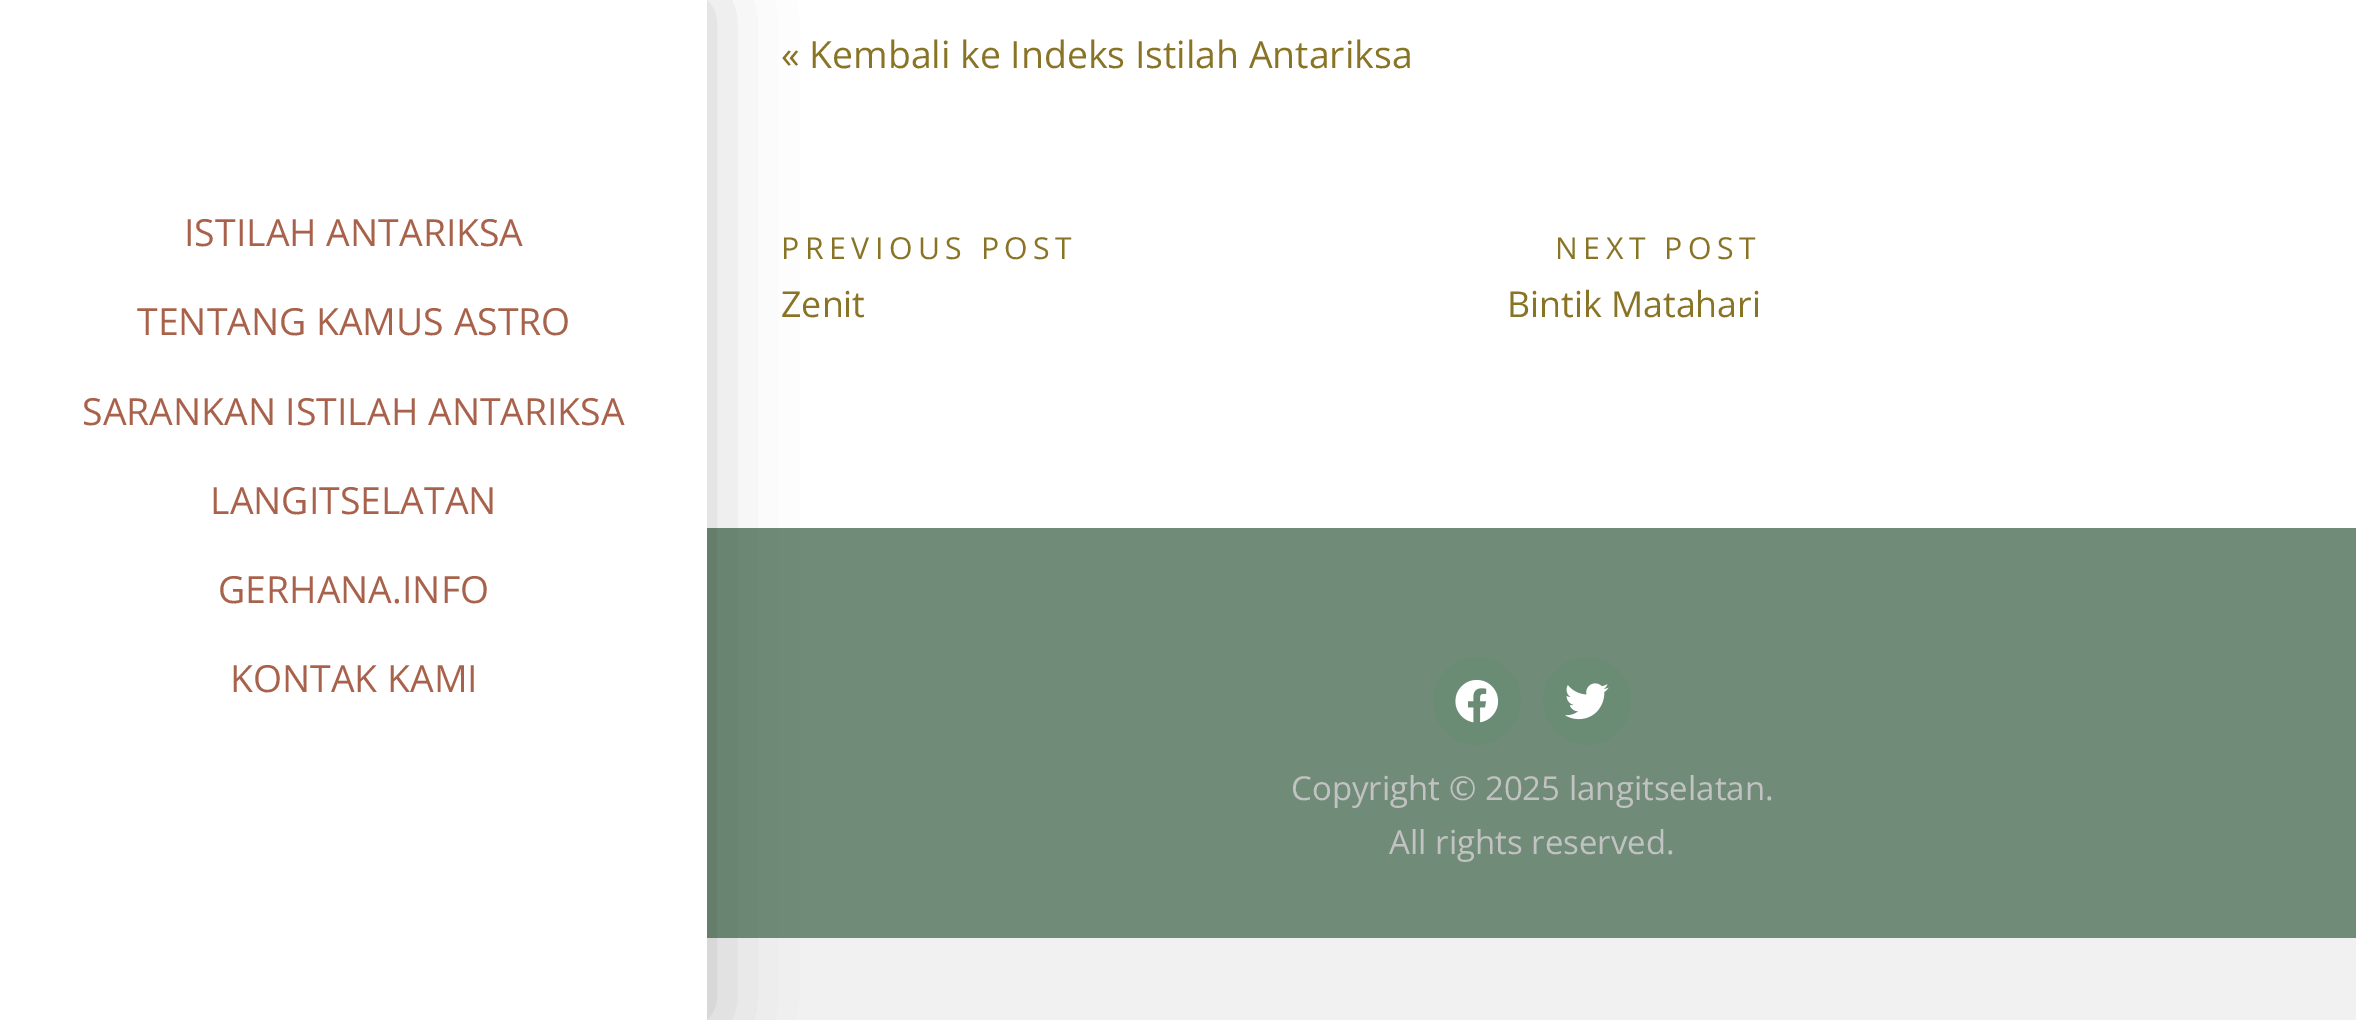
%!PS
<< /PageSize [2356 1020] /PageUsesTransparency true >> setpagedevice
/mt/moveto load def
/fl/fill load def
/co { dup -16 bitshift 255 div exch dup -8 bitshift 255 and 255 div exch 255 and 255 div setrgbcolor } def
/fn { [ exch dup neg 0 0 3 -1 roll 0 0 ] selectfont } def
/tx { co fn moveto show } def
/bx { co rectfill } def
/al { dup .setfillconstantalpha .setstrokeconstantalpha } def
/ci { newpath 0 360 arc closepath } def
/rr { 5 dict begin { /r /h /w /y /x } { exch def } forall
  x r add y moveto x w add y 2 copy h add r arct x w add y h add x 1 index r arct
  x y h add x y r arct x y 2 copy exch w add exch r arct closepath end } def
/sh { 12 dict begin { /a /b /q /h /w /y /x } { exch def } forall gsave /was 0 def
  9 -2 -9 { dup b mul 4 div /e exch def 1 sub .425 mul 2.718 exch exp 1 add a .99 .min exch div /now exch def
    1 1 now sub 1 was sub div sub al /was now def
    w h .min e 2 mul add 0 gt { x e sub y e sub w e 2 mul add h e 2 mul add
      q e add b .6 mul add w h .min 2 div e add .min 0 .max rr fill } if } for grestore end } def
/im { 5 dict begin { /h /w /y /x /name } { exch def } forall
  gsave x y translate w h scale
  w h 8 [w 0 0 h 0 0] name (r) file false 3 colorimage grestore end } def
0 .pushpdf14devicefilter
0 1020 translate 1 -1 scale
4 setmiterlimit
0 0 2356 1020 16#F1F1F1 bx
707 0 1649 528 16#FFFFFF bx
707 528 1649 410 16#708C78 bx
16#000000 co
0 0 707 1020 0 41 .2 sh
0 0 707 1020 16#FFFFFF bx
16#6A8C74 co
1477 701 44 ci fl
(media/1.raw) 1455 679 44 44 im
1587 701 44 ci fl
(media/2.raw) 1565 683 44 37 im
(ISTILAH ANTARIKSA) 184 246 /OpenSans-Regular 37.4 16#A8614A tx
(TENTANG KAMUS ASTRO) 137 335 /OpenSans-Regular 37.4 16#A8614A tx
(SARANKAN ISTILAH ANTARIKSA) 82 425 /OpenSans-Regular 37.4 16#A8614A tx
(LANGITSELATAN) 210 514 /OpenSans-Regular 37.4 16#A8614A tx
(GERHANA.INFO) 218 603 /OpenSans-Regular 37.4 16#A8614A tx
(KONTAK KAMI) 230 692 /OpenSans-Regular 37.4 16#A8614A tx
(« Kembali ke Indeks Istilah Antariksa) 781 68 /OpenSans-Regular 37.4 16#897426 tx
/OpenSans-Regular 30.25 fn
781 259 mt 5.5 0 (PREVIOUS POST) ashow
(Zenit) 781 317 /OpenSans-Regular 35.75 16#897426 tx
/OpenSans-Regular 30.25 fn
1555 259 mt 5.5 0 (NEXT POST) ashow
(Bintik Matahari) 1507 317 /OpenSans-Regular 35.75 16#897426 tx
(Copyright © 2025 langitselatan.) 1291 800 /OpenSans-Regular 33 16#C2C2C2 tx
(All rights reserved.) 1389 854 /OpenSans-Regular 33 16#C2C2C2 tx
.poppdf14devicefilter showpage
